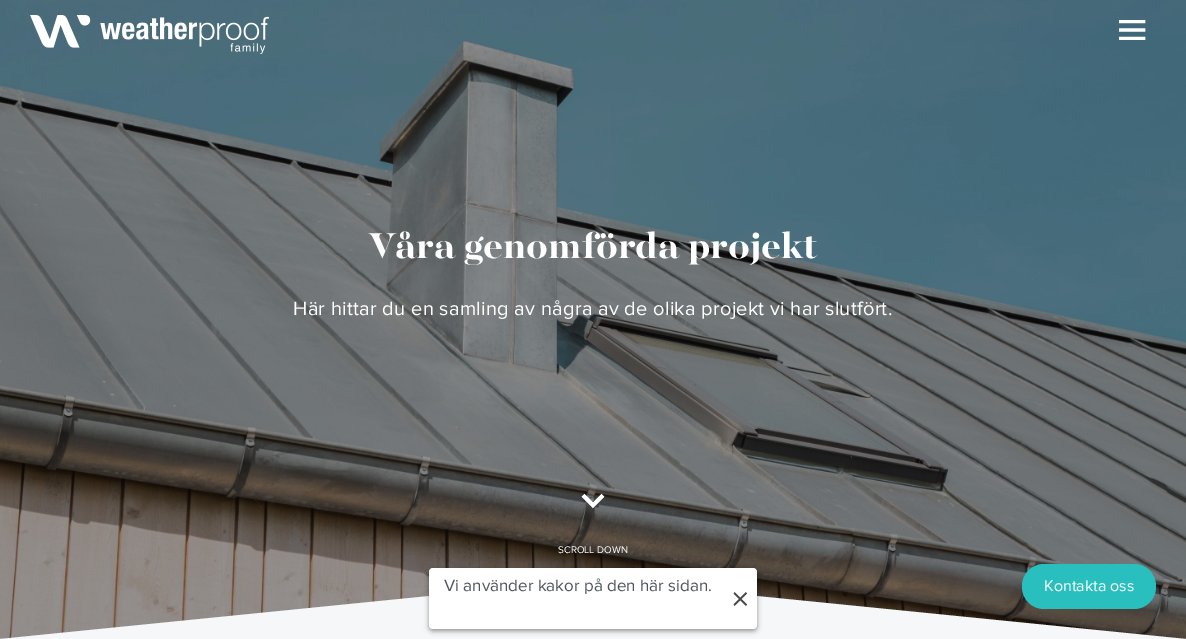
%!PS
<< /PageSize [1186 639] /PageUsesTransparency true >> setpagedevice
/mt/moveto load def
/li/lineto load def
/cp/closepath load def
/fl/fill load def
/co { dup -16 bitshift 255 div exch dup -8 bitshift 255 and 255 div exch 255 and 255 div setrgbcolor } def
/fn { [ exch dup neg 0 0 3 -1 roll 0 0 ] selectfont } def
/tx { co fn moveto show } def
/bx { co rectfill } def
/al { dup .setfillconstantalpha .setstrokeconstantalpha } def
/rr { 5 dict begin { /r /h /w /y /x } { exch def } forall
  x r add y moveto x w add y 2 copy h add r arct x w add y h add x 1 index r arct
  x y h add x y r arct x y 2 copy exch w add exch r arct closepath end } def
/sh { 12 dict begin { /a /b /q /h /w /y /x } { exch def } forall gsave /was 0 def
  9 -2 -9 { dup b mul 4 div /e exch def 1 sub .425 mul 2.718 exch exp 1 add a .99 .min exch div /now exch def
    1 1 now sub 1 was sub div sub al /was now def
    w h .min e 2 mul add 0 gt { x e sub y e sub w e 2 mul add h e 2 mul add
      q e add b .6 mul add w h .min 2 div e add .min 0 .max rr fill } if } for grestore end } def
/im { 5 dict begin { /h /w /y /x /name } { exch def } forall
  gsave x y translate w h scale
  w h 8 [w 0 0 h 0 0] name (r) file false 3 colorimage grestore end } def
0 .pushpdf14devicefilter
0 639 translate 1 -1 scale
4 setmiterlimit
0 0 1186 639 16#FFFFFF bx
(media/3.raw) 0 0 1186 639 im
(media/1.raw) 30 15 239 39 im
(media/2.raw) 1119 20 27 20 im
(media/4.raw) 581 493 24 16 im
16#F5F7F9 co
0 639 mt 0 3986 li 1186 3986 li 1186 639 li 596 580 li 590 580 li cp fl
16#000000 co
429 570 328 61 4 2.5 .4 sh
16#FFFFFF co
429 568 328 61 4 rr fl
(media/5.raw) 733 592 14 14 im
16#2ABFBF co
1022 564 134 45 22 rr fl
(Våra genomförda projekt) 369 258 /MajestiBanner-Bold 40 16#FFFFFF tx
/ProximaNova-Regular 20 fn
293 315 mt .3 0 (Här hittar du en samling av några av de olika projekt vi har slutfört.) ashow
(SCROLL DOWN) 558 553 /ProximaNova-Regular 10 16#FFFFFF tx
(Vi använder kakor på den här sidan.) 444 591 /ProximaNova-Regular 17 16#4F575E tx
(Kontakta oss) 1044 591 /ProximaNova-Regular 16 16#FFFFFF tx
.poppdf14devicefilter showpage
